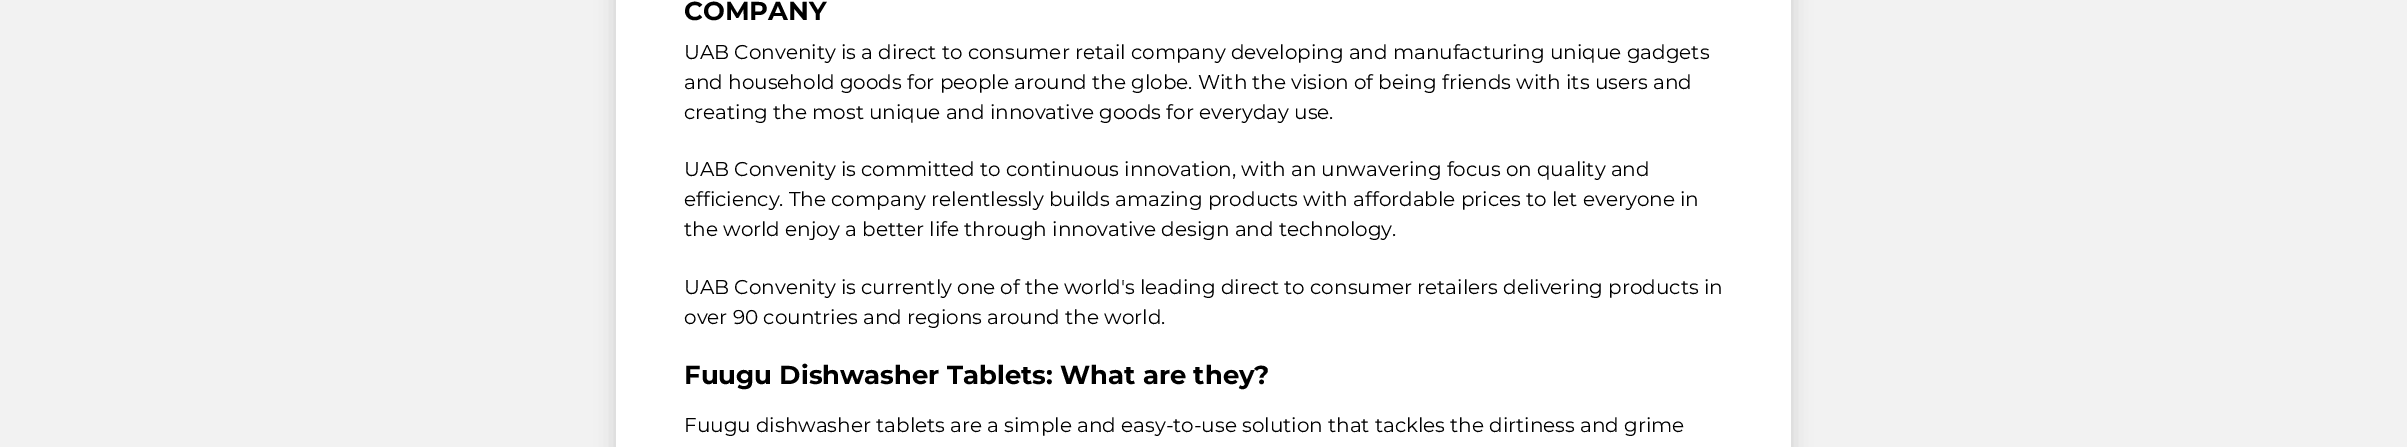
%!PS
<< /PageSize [2407 447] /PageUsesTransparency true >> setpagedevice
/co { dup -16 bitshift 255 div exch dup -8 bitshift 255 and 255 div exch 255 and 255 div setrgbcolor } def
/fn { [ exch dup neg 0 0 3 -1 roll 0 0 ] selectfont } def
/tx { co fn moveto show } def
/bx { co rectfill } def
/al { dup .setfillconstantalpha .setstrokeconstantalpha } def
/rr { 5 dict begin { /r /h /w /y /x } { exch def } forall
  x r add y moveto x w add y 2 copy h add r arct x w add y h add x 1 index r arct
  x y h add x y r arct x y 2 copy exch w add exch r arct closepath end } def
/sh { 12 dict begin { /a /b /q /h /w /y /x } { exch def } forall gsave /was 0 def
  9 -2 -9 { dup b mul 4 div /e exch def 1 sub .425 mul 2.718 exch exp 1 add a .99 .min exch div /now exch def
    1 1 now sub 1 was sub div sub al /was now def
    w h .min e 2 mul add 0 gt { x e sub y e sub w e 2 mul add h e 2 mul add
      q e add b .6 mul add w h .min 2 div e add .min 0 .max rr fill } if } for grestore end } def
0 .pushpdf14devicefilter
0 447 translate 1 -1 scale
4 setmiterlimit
0 0 2407 447 16#F2F2F2 bx
16#000000 co
616 -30 1175 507 0 10 .15 sh
616 0 1175 447 16#FFFFFF bx
(COMPANY) 684 20 /Montserrat-Bold 25.9 16#000000 tx
(UAB Convenity is a direct to consumer retail company developing and manufacturing unique gadgets) 684 59 /Montserrat-Regular 20 16#000000 tx
(and household goods for people around the globe. With the vision of being friends with its users and) 684 89 /Montserrat-Regular 20 16#000000 tx
(creating the most unique and innovative goods for everyday use.) 684 119 /Montserrat-Regular 20 16#000000 tx
(UAB Convenity is committed to continuous innovation, with an unwavering focus on quality and) 684 176 /Montserrat-Regular 20 16#000000 tx
(efficiency. The company relentlessly builds amazing products with affordable prices to let everyone in) 684 206 /Montserrat-Regular 20 16#000000 tx
(the world enjoy a better life through innovative design and technology.) 684 236 /Montserrat-Regular 20 16#000000 tx
(UAB Convenity is currently one of the world's leading direct to consumer retailers delivering products in) 684 294 /Montserrat-Regular 20 16#000000 tx
(over 90 countries and regions around the world.) 684 324 /Montserrat-Regular 20 16#000000 tx
(Fuugu Dishwasher Tablets: What are they?) 684 384 /Montserrat-Bold 25.9 16#000000 tx
(Fuugu dishwasher tablets are a simple and easy-to-use solution that tackles the dirtiness and grime) 684 432 /Montserrat-Regular 20 16#000000 tx
.poppdf14devicefilter showpage
